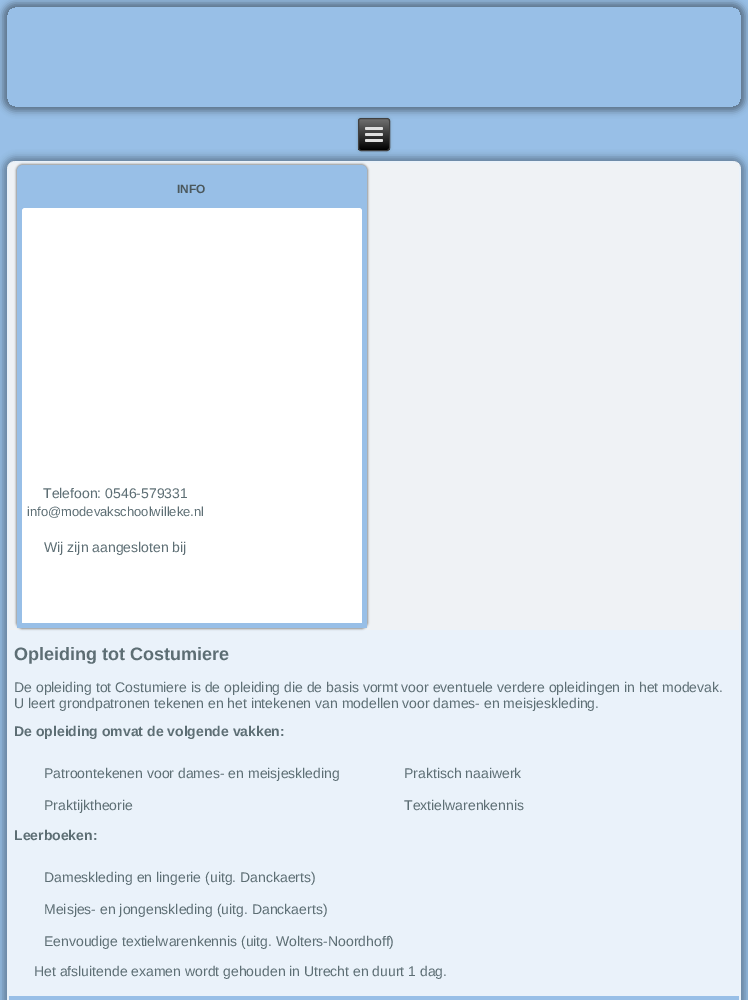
%!PS
<< /PageSize [748 1000] /PageUsesTransparency true >> setpagedevice
/mt/moveto load def
/li/lineto load def
/ct/curveto load def
/cp/closepath load def
/fl/fill load def
/st/stroke load def
/gs/gsave load def
/gr/grestore load def
/co { dup -16 bitshift 255 div exch dup -8 bitshift 255 and 255 div exch 255 and 255 div setrgbcolor } def
/fn { [ exch dup neg 0 0 3 -1 roll 0 0 ] selectfont } def
/tx { co fn moveto show } def
/bx { co rectfill } def
/al { dup .setfillconstantalpha .setstrokeconstantalpha } def
/rr { 5 dict begin { /r /h /w /y /x } { exch def } forall
  x r add y moveto x w add y 2 copy h add r arct x w add y h add x 1 index r arct
  x y h add x y r arct x y 2 copy exch w add exch r arct closepath end } def
/sh { 12 dict begin { /a /b /q /h /w /y /x } { exch def } forall gsave /was 0 def
  9 -2 -9 { dup b mul 4 div /e exch def 1 sub .425 mul 2.718 exch exp 1 add a .99 .min exch div /now exch def
    1 1 now sub 1 was sub div sub al /was now def
    w h .min e 2 mul add 0 gt { x e sub y e sub w e 2 mul add h e 2 mul add
      q e add b .6 mul add w h .min 2 div e add .min 0 .max rr fill } if } for grestore end } def
0 .pushpdf14devicefilter
0 1000 translate 1 -1 scale
4 setmiterlimit
0 0 748 1000 16#98BFE7 bx
gs
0 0 mt 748 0 li 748 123 li 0 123 li cp 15 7 mt 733 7 li 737.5 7 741 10.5 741 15 ct 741 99 li 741 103.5 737.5 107 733 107 ct 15 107 li 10.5 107 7 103.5 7 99 ct 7 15 li 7 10.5 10.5 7 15 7 ct cp eoclip newpath
16#000000 co
3 3 742 108 12 3.5 .4 sh
gr
16#000000 co
358 118 32 33 3 1.5 .2 sh
gs
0 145 mt 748 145 li 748 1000 li 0 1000 li cp 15 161 mt 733 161 li 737.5 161 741 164.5 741 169 ct 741 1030 li 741 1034.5 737.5 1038 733 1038 ct 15 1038 li 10.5 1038 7 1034.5 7 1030 ct 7 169 li 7 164.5 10.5 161 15 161 ct cp eoclip newpath
3 157 742 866 12 3.5 .32 sh
gr
gs
358 118 32 33 3 rr clip newpath
gs 358 119 mt 390 119 li 390 150 li 358 150 li cp clip newpath
<< /ShadingType 2 /ColorSpace /DeviceRGB /Coords [374 119 374 150] /Extend [true true] /Function << /FunctionType 2 /Domain [0 1] /C0 [.439 .439 .439] /C1 [0 0 0] /N 1 >> >> shfill gr
gr
16#404040 co
358.5 118.5 31 32 2.5 rr st
16#E0E0E0 co
365 127 18 3 1.5 rr fl
365 133 18 3 1.5 rr fl
365 139 18 3 1.5 rr fl
0.8 al
16#FFFFFF co
7 161 734 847 8 rr fl
1 al
16#EFF2F5 co
15 163 mt 739 163 li 739 630 li 9 630 li 9 169 li 9 165.5 11.5 163 15 163 ct cp fl
16#000000 co
16 164 352 465 7 1 .4 sh
16#98BFE7 co
23 165 mt 361 165 li 364.5 165 367 167.5 367 171 ct 367 628 li 17 628 li 17 171 li 17 167.5 19.5 165 23 165 ct cp fl
16#FFFFFF co
25 208 mt 359 208 li 360.5 208 362 209.5 362 211 ct 362 623 li 22 623 li 22 211 li 22 209.5 23.5 208 25 208 ct cp fl
9 996 730 4 16#98BFE7 bx
(INFO) 177 193 /LiberationSans-Bold 12 16#4B585D tx
(Telefoon: 0546-579331) 43 498 /LiberationSans-Regular 14 16#5D6E74 tx
(info@modevakschoolwilleke.nl) 27 516 /LiberationSans-Regular 13 16#5D6E74 tx
(Wij zijn aangesloten bij) 44 552 /LiberationSans-Regular 14 16#5D6E74 tx
(Opleiding tot Costumiere) 14 660 /LiberationSans-Bold 18 16#5D6E74 tx
(De opleiding tot Costumiere is de opleiding die de basis vormt voor eventuele verdere opleidingen in het modevak.) 14 692 /LiberationSans-Regular 14 16#5D6E74 tx
(U leert grondpatronen tekenen en het intekenen van modellen voor dames- en meisjeskleding.) 14 708 /LiberationSans-Regular 14 16#5D6E74 tx
(De opleiding omvat de volgende vakken:) 14 736 /LiberationSans-Bold 14 16#5D6E74 tx
(Patroontekenen voor dames- en meisjeskleding) 44 778 /LiberationSans-Regular 14 16#5D6E74 tx
(Praktisch naaiwerk) 404 778 /LiberationSans-Regular 14 16#5D6E74 tx
(Praktijktheorie) 44 810 /LiberationSans-Regular 14 16#5D6E74 tx
(Textielwarenkennis) 404 810 /LiberationSans-Regular 14 16#5D6E74 tx
(Leerboeken:) 14 840 /LiberationSans-Bold 14 16#5D6E74 tx
(Dameskleding en lingerie \(uitg. Danckaerts\)) 44 882 /LiberationSans-Regular 14 16#5D6E74 tx
(Meisjes- en jongenskleding \(uitg. Danckaerts\)) 44 914 /LiberationSans-Regular 14 16#5D6E74 tx
(Eenvoudige textielwarenkennis \(uitg. Wolters-Noordhoff\)) 44 946 /LiberationSans-Regular 14 16#5D6E74 tx
(Het afsluitende examen wordt gehouden in Utrecht en duurt 1 dag.) 34 976 /LiberationSans-Regular 14 16#5D6E74 tx
.poppdf14devicefilter showpage
